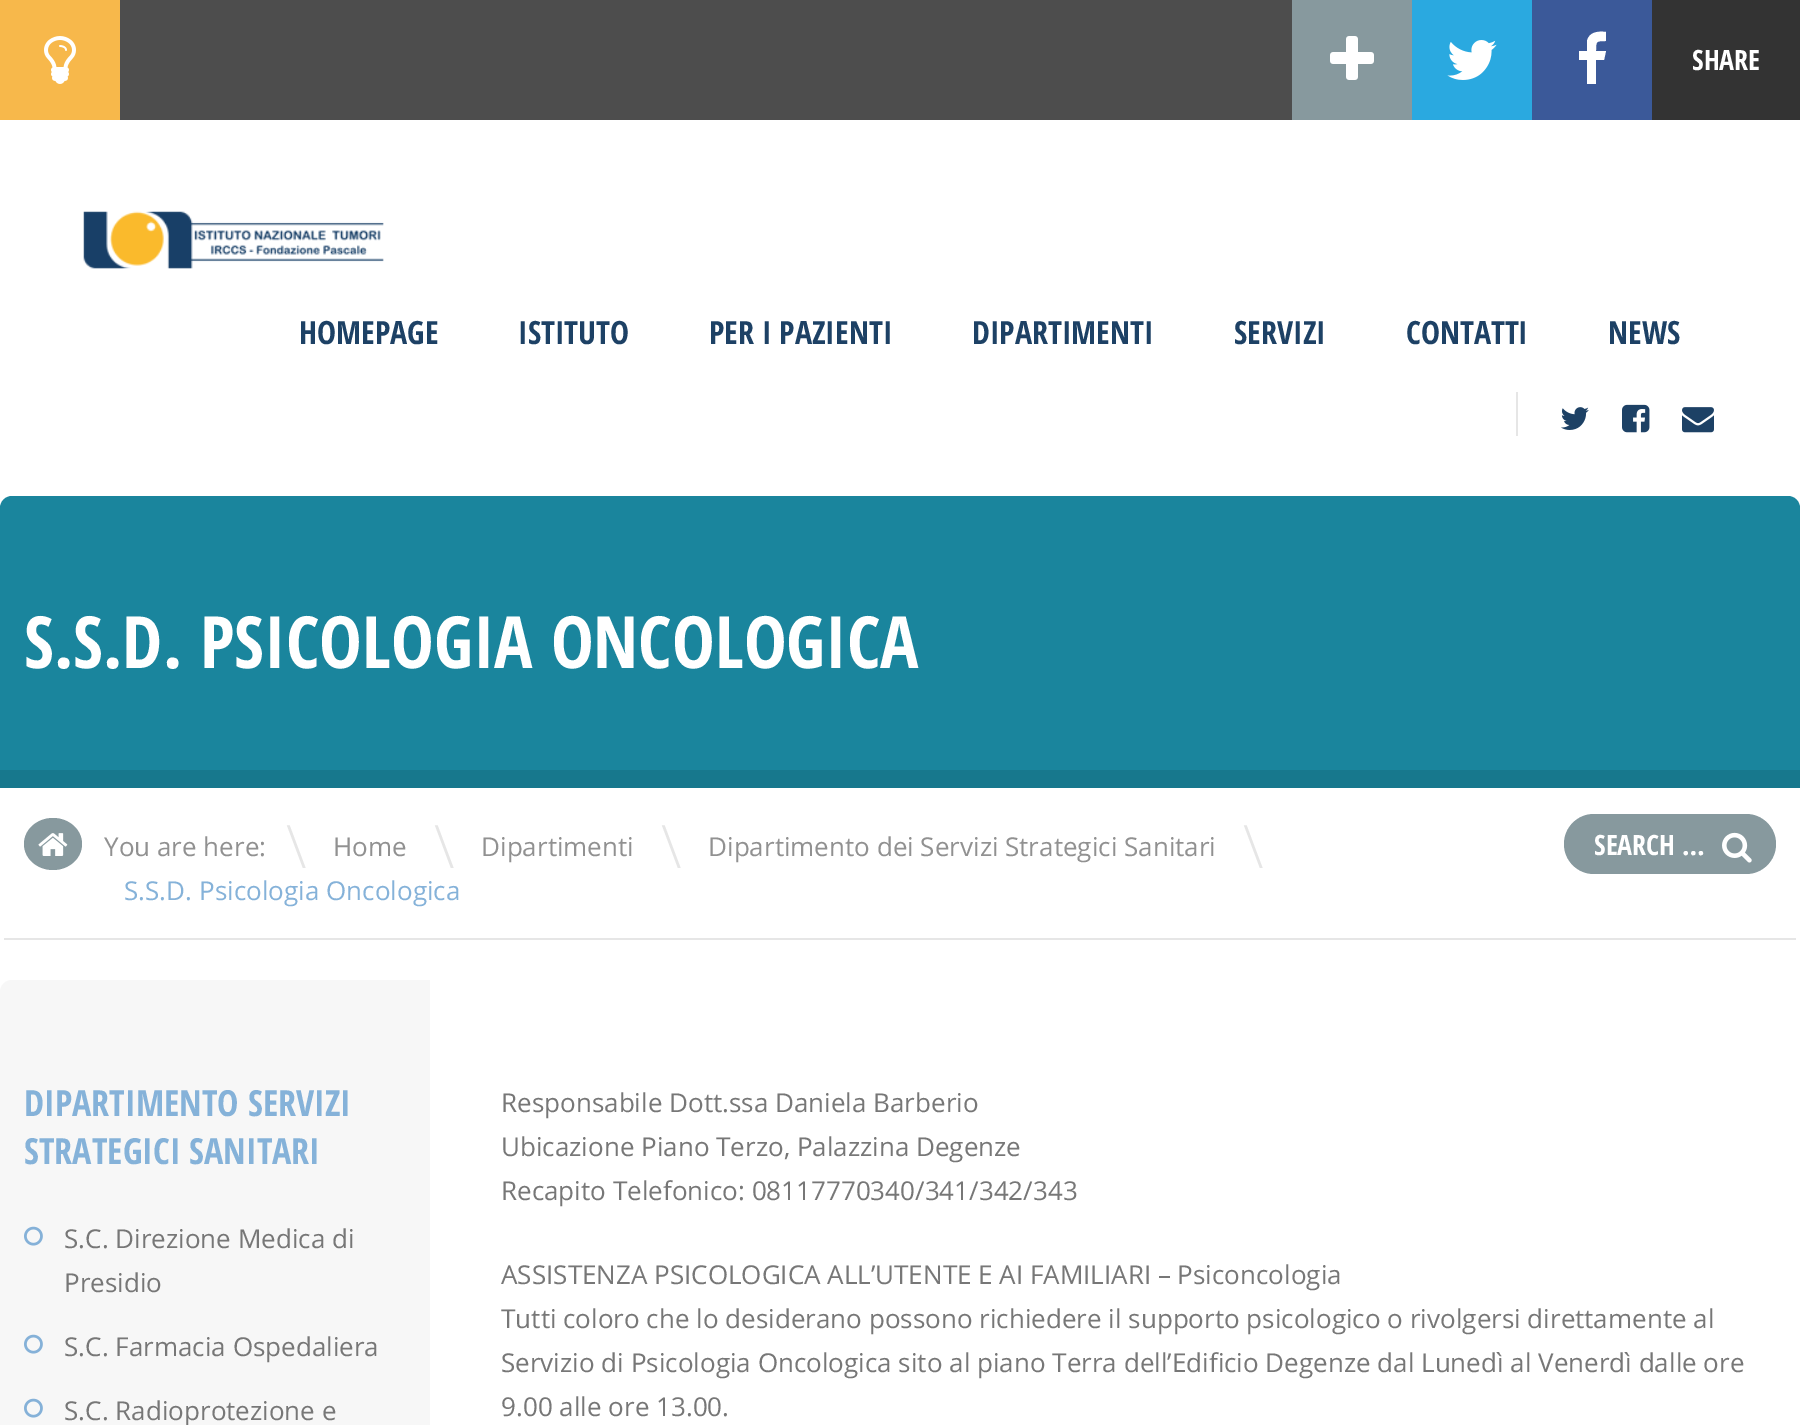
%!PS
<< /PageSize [1800 1425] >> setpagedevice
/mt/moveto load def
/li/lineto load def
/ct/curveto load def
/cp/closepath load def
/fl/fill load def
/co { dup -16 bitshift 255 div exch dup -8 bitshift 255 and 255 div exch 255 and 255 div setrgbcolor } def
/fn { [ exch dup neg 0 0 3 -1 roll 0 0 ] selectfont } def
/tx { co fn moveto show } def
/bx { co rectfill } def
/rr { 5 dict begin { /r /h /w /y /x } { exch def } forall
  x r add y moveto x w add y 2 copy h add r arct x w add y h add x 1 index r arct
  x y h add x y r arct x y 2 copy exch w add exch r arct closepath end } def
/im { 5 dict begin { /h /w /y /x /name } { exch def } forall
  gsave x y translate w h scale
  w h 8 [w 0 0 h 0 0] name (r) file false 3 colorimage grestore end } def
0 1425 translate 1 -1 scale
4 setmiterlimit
0 0 1800 1425 16#FFFFFF bx
120 0 1172 120 16#4D4D4D bx
0 0 120 120 16#F7B84B bx
(media/1.raw) 44 36 32 48 im
1292 0 120 120 16#87999E bx
(media/2.raw) 1330 36 44 44 im
1412 0 120 120 16#2AA9E0 bx
(media/3.raw) 1447 40 50 40 im
1532 0 120 120 16#3B5999 bx
16#FFFFFF co
1606 32 mt 1606 41 li 1596 41 1596 41 1596 51 ct 1606 51 li 1604 60 li 1596 60 li 1596 84 li 1587 84 li 1587 60 li 1579 60 li 1579 51 li 1587 51 li 1587 41 li 1589 32 1598 31 1606 32 ct cp fl
1652 0 148 120 16#333333 bx
(media/4.raw) 83 211 301 58 im
1516 392 2 44 16#E6E6E6 bx
(media/5.raw) 1561 407 28 23 im
(media/6.raw) 1622 404 28 29 im
(media/7.raw) 1682 407 32 26 im
16#1A859D co
12 496 mt 1788 496 li 1794.5 496 1800 501.5 1800 508 ct 1800 788 li 0 788 li 0 508 li 0 501.5 5.5 496 12 496 ct cp fl
0 770 1800 18 16#17788D bx
4 938 1792 2 16#E6E6E6 bx
16#87999E co
53 818 mt 69 818 82 829.5 82 844 ct 82 858.5 69 870 53 870 ct 37 870 24 858.5 24 844 ct 24 829.5 37 818 53 818 ct cp fl
(media/8.raw) 38 833 30 23 im
1564 814 212 60 30 rr fl
(media/9.raw) 1722 832 30 31 im
16#F7F7F7 co
12 980 mt 430 980 li 430 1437 li 0 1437 li 0 992 li 0 985.5 5.5 980 12 980 ct cp fl
(media/10.raw) 24 1226 19 20 im
(media/10.raw) 24 1334 19 20 im
(media/10.raw) 24 1398 19 20 im
(SHARE) 1692 70 /OpenSansCondensed-Bold 28 16#FFFFFF tx
(HOMEPAGE) 299 344 /OpenSansCondensed-Bold 32 16#1D4165 tx
(ISTITUTO) 518 344 /OpenSansCondensed-Bold 32 16#1D4165 tx
(PER I PAZIENTI) 709 344 /OpenSansCondensed-Bold 32 16#1D4165 tx
(DIPARTIMENTI) 972 344 /OpenSansCondensed-Bold 32 16#1D4165 tx
(SERVIZI) 1234 344 /OpenSansCondensed-Bold 32 16#1D4165 tx
(CONTATTI) 1406 344 /OpenSansCondensed-Bold 32 16#1D4165 tx
(NEWS) 1608 344 /OpenSansCondensed-Bold 32 16#1D4165 tx
(S.S.D. PSICOLOGIA ONCOLOGICA) 24 668 /OpenSansCondensed-Bold 72 16#FFFFFF tx
(You are here:) 104 856 /OpenSans-Regular 26 16#919191 tx
(\\) 286 868 /OpenSans-Light 60 16#E6E6E6 tx
(Home) 333 856 /OpenSans-Regular 26 16#919191 tx
(\\) 434 868 /OpenSans-Light 60 16#E6E6E6 tx
(Dipartimenti) 481 856 /OpenSans-Regular 26 16#919191 tx
(\\) 661 868 /OpenSans-Light 60 16#E6E6E6 tx
(Dipartimento dei Servizi Strategici Sanitari) 708 856 /OpenSans-Regular 26 16#919191 tx
(\\) 1243 868 /OpenSans-Light 60 16#E6E6E6 tx
(S.S.D. Psicologia Oncologica) 124 900 /OpenSans-Regular 26 16#85B2D9 tx
(SEARCH …) 1594 855 /OpenSansCondensed-Bold 28 16#FFFFFF tx
(DIPARTIMENTO SERVIZI) 24 1116 /OpenSansCondensed-Bold 36 16#85B2D9 tx
(STRATEGICI SANITARI) 24 1164 /OpenSansCondensed-Bold 36 16#85B2D9 tx
(S.C. Direzione Medica di) 64 1248 /OpenSans-Regular 26 16#777777 tx
(Presidio) 64 1292 /OpenSans-Regular 26 16#777777 tx
(S.C. Farmacia Ospedaliera) 64 1356 /OpenSans-Regular 26 16#777777 tx
(S.C. Radioprotezione e) 64 1420 /OpenSans-Regular 26 16#777777 tx
(Responsabile Dott.ssa Daniela Barberio) 501 1112 /OpenSans-Regular 26 16#777777 tx
(Ubicazione Piano Terzo, Palazzina Degenze) 501 1156 /OpenSans-Regular 26 16#777777 tx
(Recapito Telefonico: 08117770340/341/342/343) 501 1200 /OpenSans-Regular 26 16#777777 tx
(ASSISTENZA PSICOLOGICA ALL’UTENTE E AI FAMILIARI – Psiconcologia) 501 1284 /OpenSans-Regular 26 16#777777 tx
(Tutti coloro che lo desiderano possono richiedere il supporto psicologico o rivolgersi direttamente al) 501 1328 /OpenSans-Regular 26 16#777777 tx
(Servizio di Psicologia Oncologica sito al piano Terra dell’Edificio Degenze dal Lunedì al Venerdì dalle ore) 501 1372 /OpenSans-Regular 26 16#777777 tx
(9.00 alle ore 13.00.) 501 1416 /OpenSans-Regular 26 16#777777 tx
showpage
